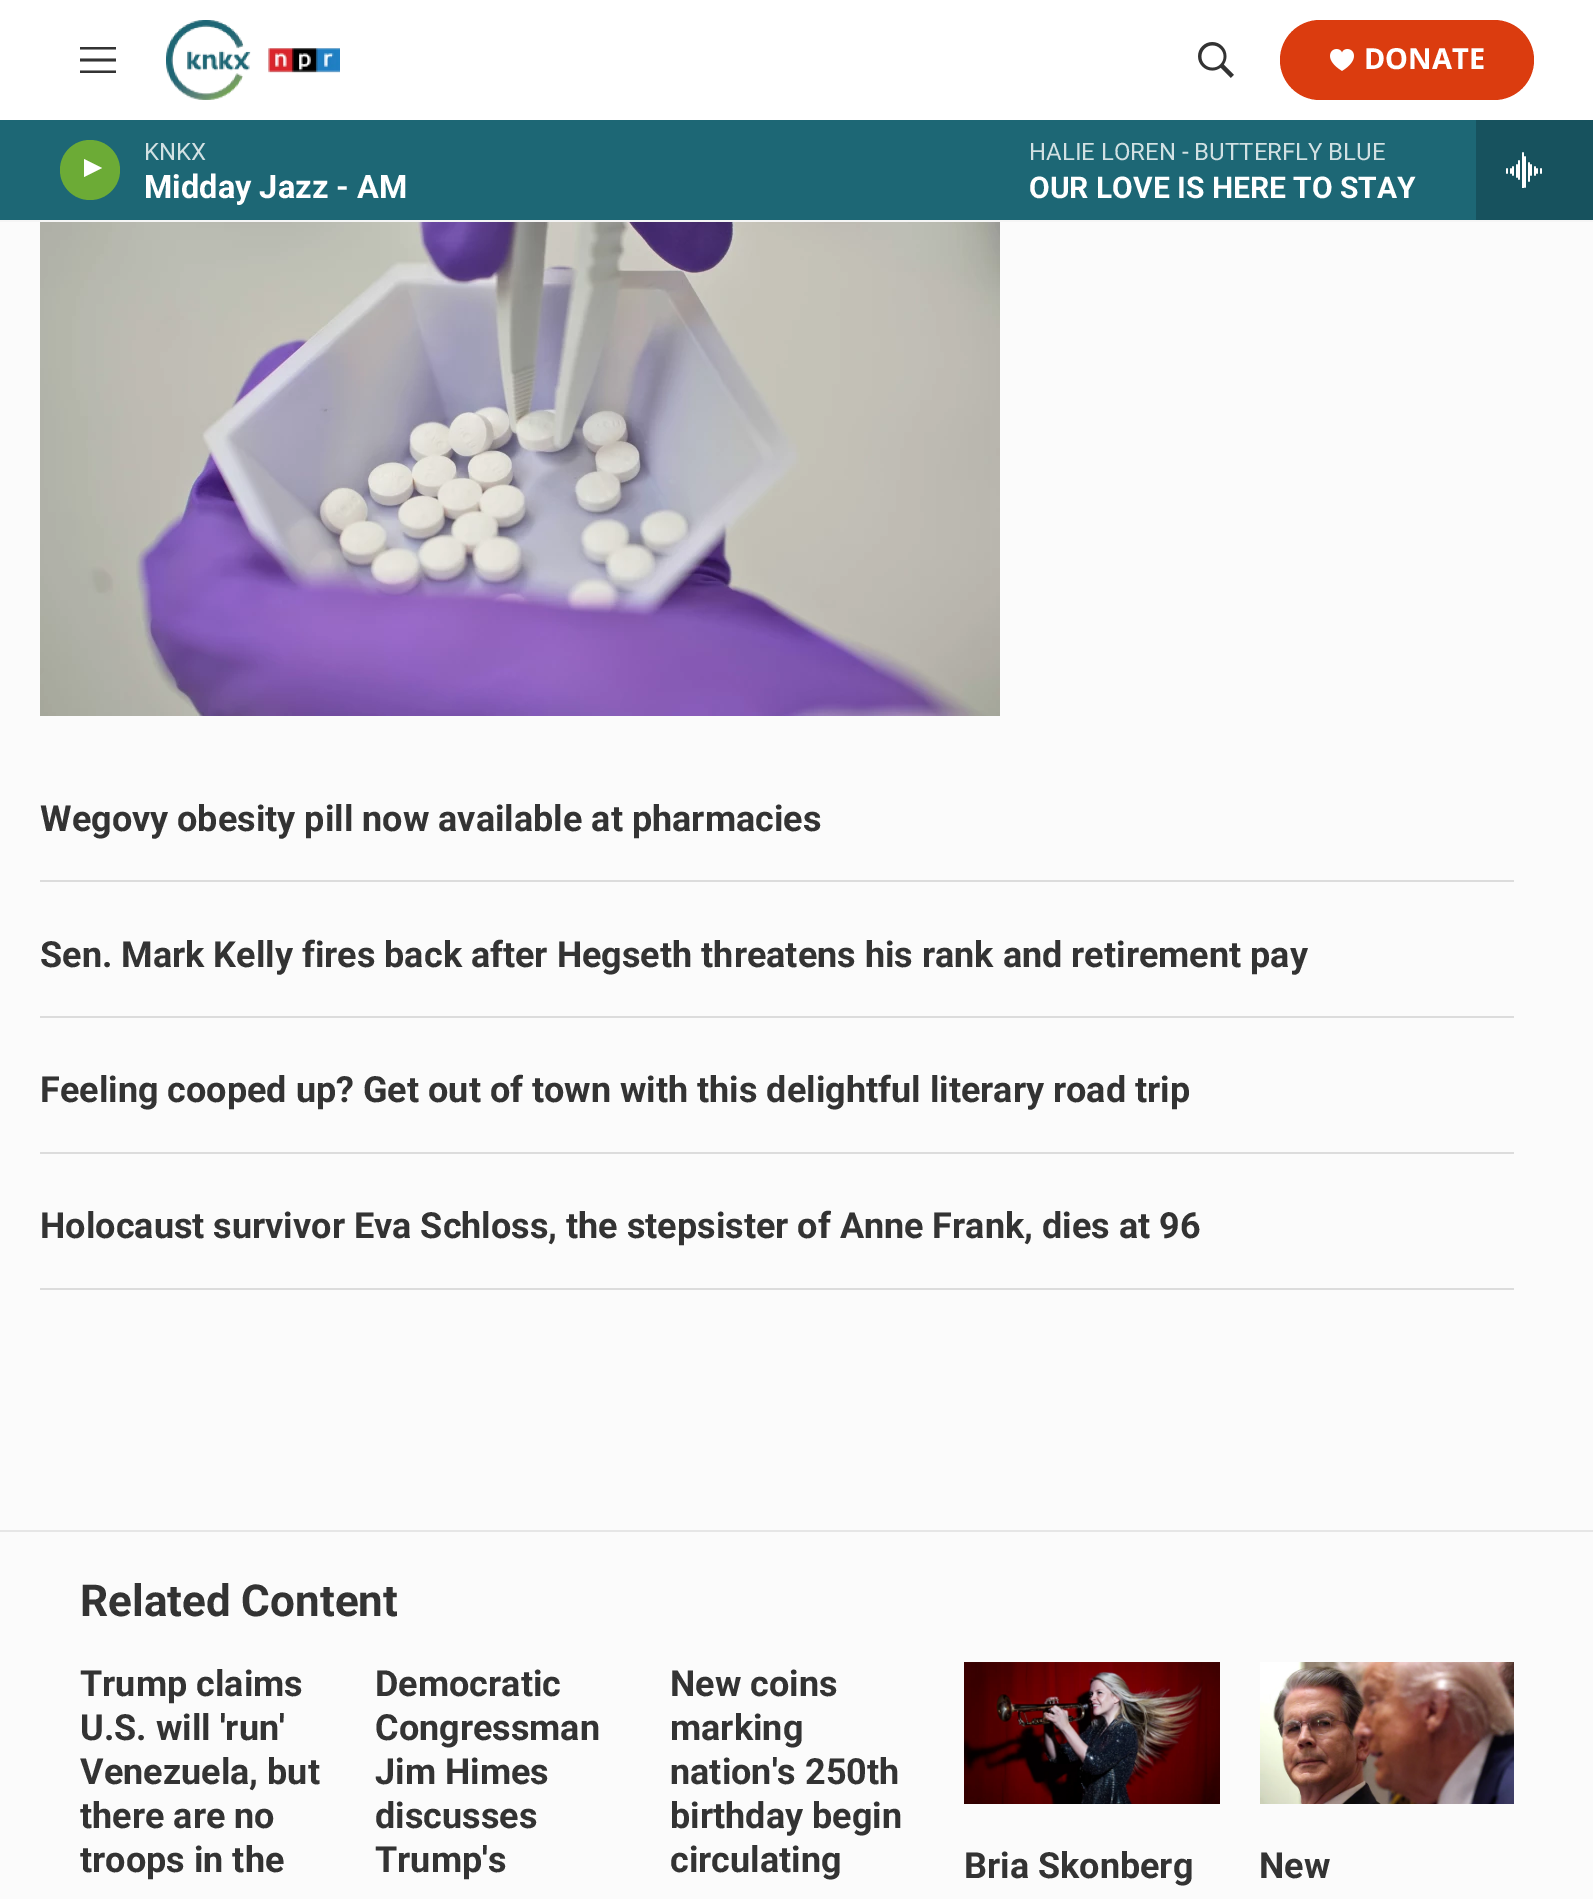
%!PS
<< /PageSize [1593 1899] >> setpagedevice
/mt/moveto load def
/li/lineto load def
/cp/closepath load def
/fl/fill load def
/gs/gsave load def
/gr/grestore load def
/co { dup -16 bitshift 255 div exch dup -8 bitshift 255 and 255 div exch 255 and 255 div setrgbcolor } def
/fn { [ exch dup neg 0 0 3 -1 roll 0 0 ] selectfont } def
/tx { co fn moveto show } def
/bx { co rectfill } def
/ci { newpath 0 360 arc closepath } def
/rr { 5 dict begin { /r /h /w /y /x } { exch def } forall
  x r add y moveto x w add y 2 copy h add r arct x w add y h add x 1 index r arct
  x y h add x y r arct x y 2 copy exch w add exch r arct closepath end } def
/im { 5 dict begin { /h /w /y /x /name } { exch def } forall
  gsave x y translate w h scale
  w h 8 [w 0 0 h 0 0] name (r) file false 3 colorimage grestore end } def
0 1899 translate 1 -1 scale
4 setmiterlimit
0 0 1593 1899 16#FBFBFB bx
0 0 1593 120 16#FFFFFF bx
0 220 1593 2 16#F5F5F5 bx
16#333333 co
80 61.5 mt 80 58.5 li 116 58.5 li 116 61.5 li cp 80 49.5 mt 80 47 li 116 47 li 116 49.5 li cp 80 73 mt 80 70.5 li 116 70.5 li 116 73 li cp eofill
(media/1.raw) 166 20 174 80 im
(media/2.raw) 1198 42 36 36 im
16#DB3C0F co
1280 20 254 80 40 rr fl
(media/3.raw) 1330 49 24 22 im
0 120 1476 100 16#1D6775 bx
16#6CAB36 co
90 170 30 ci fl
gs
84 156 23 30 rectclip
16#FFFFFF co
83 158.5 mt 102 168 li 83 177.5 li cp fl
gr
1476 120 117 100 16#17525E bx
(media/4.raw) 1506 152 36 36 im
(media/5.raw) 40 222 960 494 im
40 880 1474 2 16#DCDCDC bx
40 1016 1474 2 16#DCDCDC bx
40 1152 1474 2 16#DCDCDC bx
40 1288 1474 2 16#DCDCDC bx
0 1530 1593 2 16#E6E6E6 bx
(media/6.raw) 964 1662 256 142 im
(media/7.raw) 1260 1662 254 142 im
(DONATE) 1364 69 /NotoSans-Bold 29 16#FFFFFF tx
(KNKX) 144 160 /Roboto-Regular 24 16#D2E1E3 tx
(Midday Jazz - AM) 144 198 /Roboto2-Bold 32.5 16#FFFFFF tx
(HALIE LOREN - BUTTERFLY BLUE) 1029 160 /Roboto-Regular 24 16#D2E1E3 tx
(OUR LOVE IS HERE TO STAY) 1029 198 /Roboto2-Bold 30 16#FFFFFF tx
(Wegovy obesity pill now available at pharmacies) 40 831 /Roboto-Bold 36 16#333333 tx
(Sen. Mark Kelly fires back after Hegseth threatens his rank and retirement pay) 40 967 /Roboto-Bold 36 16#333333 tx
(Feeling cooped up? Get out of town with this delightful literary road trip) 40 1102 /Roboto-Bold 36 16#333333 tx
(Holocaust survivor Eva Schloss, the stepsister of Anne Frank, dies at 96) 40 1238 /Roboto-Bold 36 16#333333 tx
(Related Content) 80 1616 /Roboto-Bold 44 16#333333 tx
(Trump claims) 80 1696 /Roboto-Bold 36 16#333333 tx
(U.S. will 'run') 80 1740 /Roboto-Bold 36 16#333333 tx
(Venezuela, but) 80 1784 /Roboto-Bold 36 16#333333 tx
(there are no) 80 1828 /Roboto-Bold 36 16#333333 tx
(troops in the) 80 1872 /Roboto-Bold 36 16#333333 tx
(Democratic) 375 1696 /Roboto-Bold 36 16#333333 tx
(Congressman) 375 1740 /Roboto-Bold 36 16#333333 tx
(Jim Himes) 375 1784 /Roboto-Bold 36 16#333333 tx
(discusses) 375 1828 /Roboto-Bold 36 16#333333 tx
(Trump's) 375 1872 /Roboto-Bold 36 16#333333 tx
(New coins) 670 1696 /Roboto-Bold 36 16#333333 tx
(marking) 670 1740 /Roboto-Bold 36 16#333333 tx
(nation's 250th) 670 1784 /Roboto-Bold 36 16#333333 tx
(birthday begin) 670 1828 /Roboto-Bold 36 16#333333 tx
(circulating) 670 1872 /Roboto-Bold 36 16#333333 tx
(Bria Skonberg) 964 1878 /Roboto-Bold 36 16#333333 tx
(New) 1259 1878 /Roboto-Bold 36 16#333333 tx
showpage
